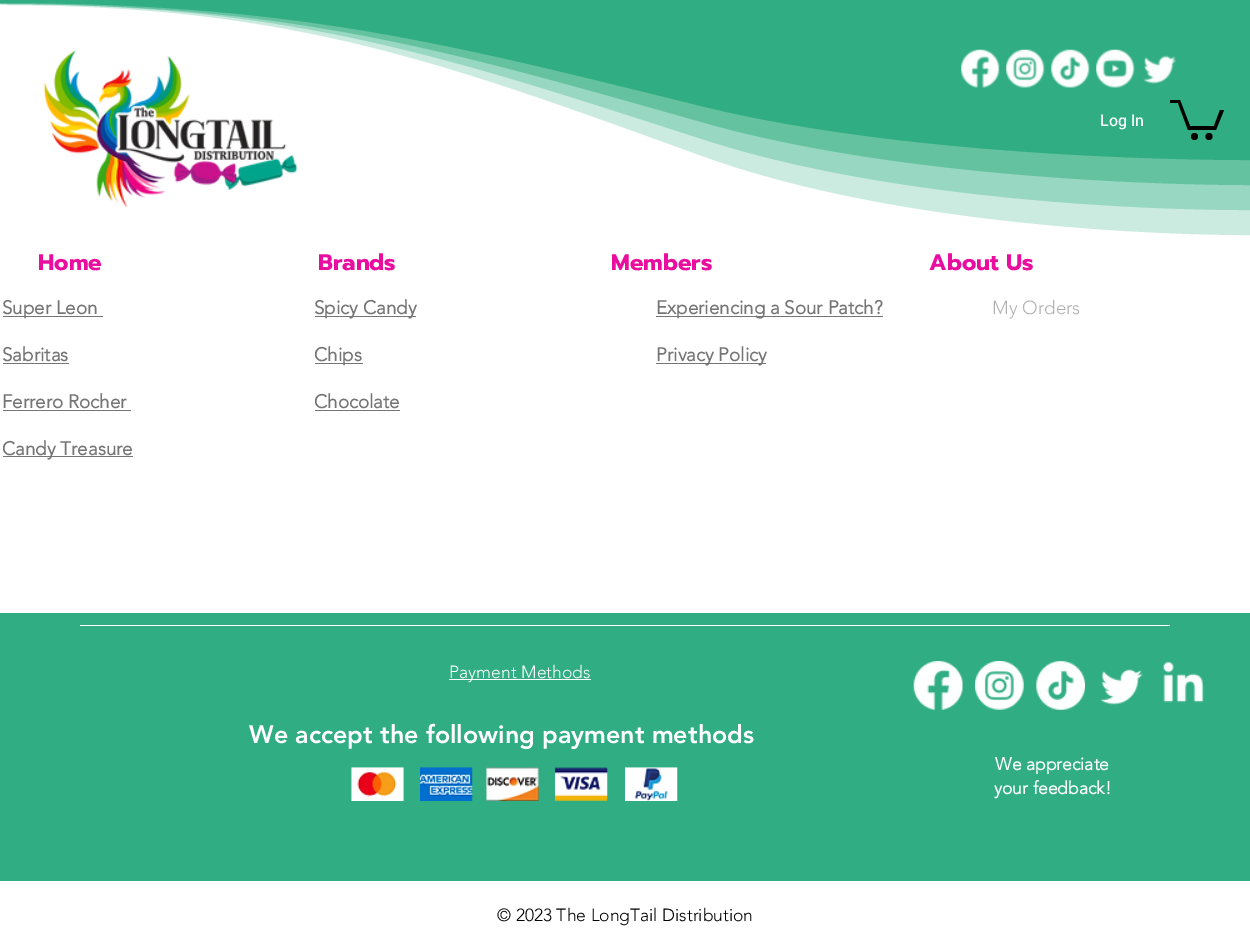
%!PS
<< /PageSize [1250 948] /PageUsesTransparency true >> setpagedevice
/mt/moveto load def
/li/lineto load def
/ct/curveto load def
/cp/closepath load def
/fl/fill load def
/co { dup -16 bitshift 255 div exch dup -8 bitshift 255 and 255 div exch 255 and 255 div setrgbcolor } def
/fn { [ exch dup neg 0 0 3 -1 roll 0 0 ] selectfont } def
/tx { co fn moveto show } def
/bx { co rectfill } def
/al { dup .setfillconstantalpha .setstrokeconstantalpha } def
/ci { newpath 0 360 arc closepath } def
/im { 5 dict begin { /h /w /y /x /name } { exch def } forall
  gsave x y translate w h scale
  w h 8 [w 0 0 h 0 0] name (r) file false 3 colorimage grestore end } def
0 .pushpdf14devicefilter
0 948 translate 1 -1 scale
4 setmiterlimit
0 0 1250 948 16#30AD82 bx
0 5 1250 608 16#FFFFFF bx
16#CCEBE0 co
0 0 mt 0 5 li 296 5 450 65 705 157 ct 931 238 1250 235 1250 235 ct 1250 0 li cp fl
16#98D7C1 co
0 0 mt 0 4 li 296 4 450 58 705 140 ct 931 213 1250 210 1250 210 ct 1250 0 li cp fl
0.5 al
16#30AD82 co
0 0 mt 0 4 li 296 4 450 51 705 123 ct 931 187 1250 185 1250 185 ct 1250 0 li cp fl
1 al
0 0 mt 0 3 li 296 3 450 44 705 107 ct 931 162 1250 160 1250 160 ct 1250 0 li cp fl
(media/1.raw) 43 51 255 157 im
(media/2.raw) 961 49 39 39 im
(media/3.raw) 1006 49 39 39 im
(media/4.raw) 1051 49 39 39 im
(media/5.raw) 1096 49 39 39 im
(media/6.raw) 1143 55 34 29 im
16#000000 co
1224 110 mt 1216 130 li 1188 130 li 1178 103 li 1170 103 li 1170 100 li 1180 100 li 1190 126 li 1214 126 li 1220 110 li fl
1209 136.5 3.5 ci fl
1194.5 136.5 3.5 ci fl
3 316 100 1 16#757575 bx
3 363 66 1 16#757575 bx
3 410 128 1 16#757575 bx
3 456 130 1 16#757575 bx
315 316 101 1 16#757575 bx
315 363 48 1 16#757575 bx
315 410 85 1 16#757575 bx
656 316 227 1 16#757575 bx
656 363 110 1 16#757575 bx
80 625 1090 1 16#FFFFFF bx
449 679 142 1 16#FFFFFF bx
(media/7.raw) 913 661 50 49 im
(media/8.raw) 975 661 49 49 im
(media/9.raw) 1036 661 49 49 im
(media/10.raw) 1100 669 43 36 im
(media/11.raw) 1162 661 42 42 im
(media/12.raw) 351 767 53 34 im
(media/13.raw) 420 767 53 34 im
(media/14.raw) 486 767 53 34 im
(media/15.raw) 555 767 53 34 im
(media/16.raw) 625 767 53 34 im
0 881 1250 67 16#FFFFFF bx
(Log In) 1100 126 /Heebo-Medium 16 16#FFFFFF tx
(Home) 38 270 /Prompt-Bold 22.5 16#E90EA0 tx
(Brands) 318 270 /Prompt-Bold 22.5 16#E90EA0 tx
(Members) 611 270 /Prompt-Bold 22.5 16#E90EA0 tx
(About Us) 929 270 /Prompt-Bold 22.5 16#E90EA0 tx
(Super Leon) 2 314 /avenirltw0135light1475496-Bold 18.75 16#757575 tx
(Sabritas) 2 361 /avenirltw0135light1475496-Bold 18.75 16#757575 tx
(Ferrero Rocher) 2 408 /avenirltw0135light1475496-Bold 18.75 16#757575 tx
(Candy Treasure) 2 455 /avenirltw0135light1475496-Bold 18.75 16#757575 tx
(Spicy Candy) 314 314 /avenirltw0135light1475496-Bold 18.75 16#757575 tx
(Chips) 314 361 /avenirltw0135light1475496-Bold 18.75 16#757575 tx
(Chocolate) 314 408 /avenirltw0135light1475496-Bold 18.75 16#757575 tx
(Experiencing a Sour Patch?) 656 314 /avenirltw0135light1475496-Bold 18.75 16#757575 tx
(Privacy Policy) 656 361 /avenirltw0135light1475496-Bold 18.75 16#757575 tx
(My Orders) 992 314 /avenirltw0135light1475496-Light 18.75 16#B1B1B1 tx
(Payment Methods) 449 678 /avenirltw0135light1475496-Light 17.5 16#FFFFFF tx
(We accept the following payment methods) 249 743 /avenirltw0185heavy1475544-Black 25 16#FFFFFF tx
(We appreciate) 995 770 /avenirltw0135light1475496-Bold 17.5 16#FFFFFF tx
(your feedback!) 994 794 /avenirltw0135light1475496-Bold 17.5 16#FFFFFF tx
(© 2023 The LongTail Distribution) 497 921 /avenirltw0135light1475496-Light 17.5 16#000000 tx
.poppdf14devicefilter showpage
